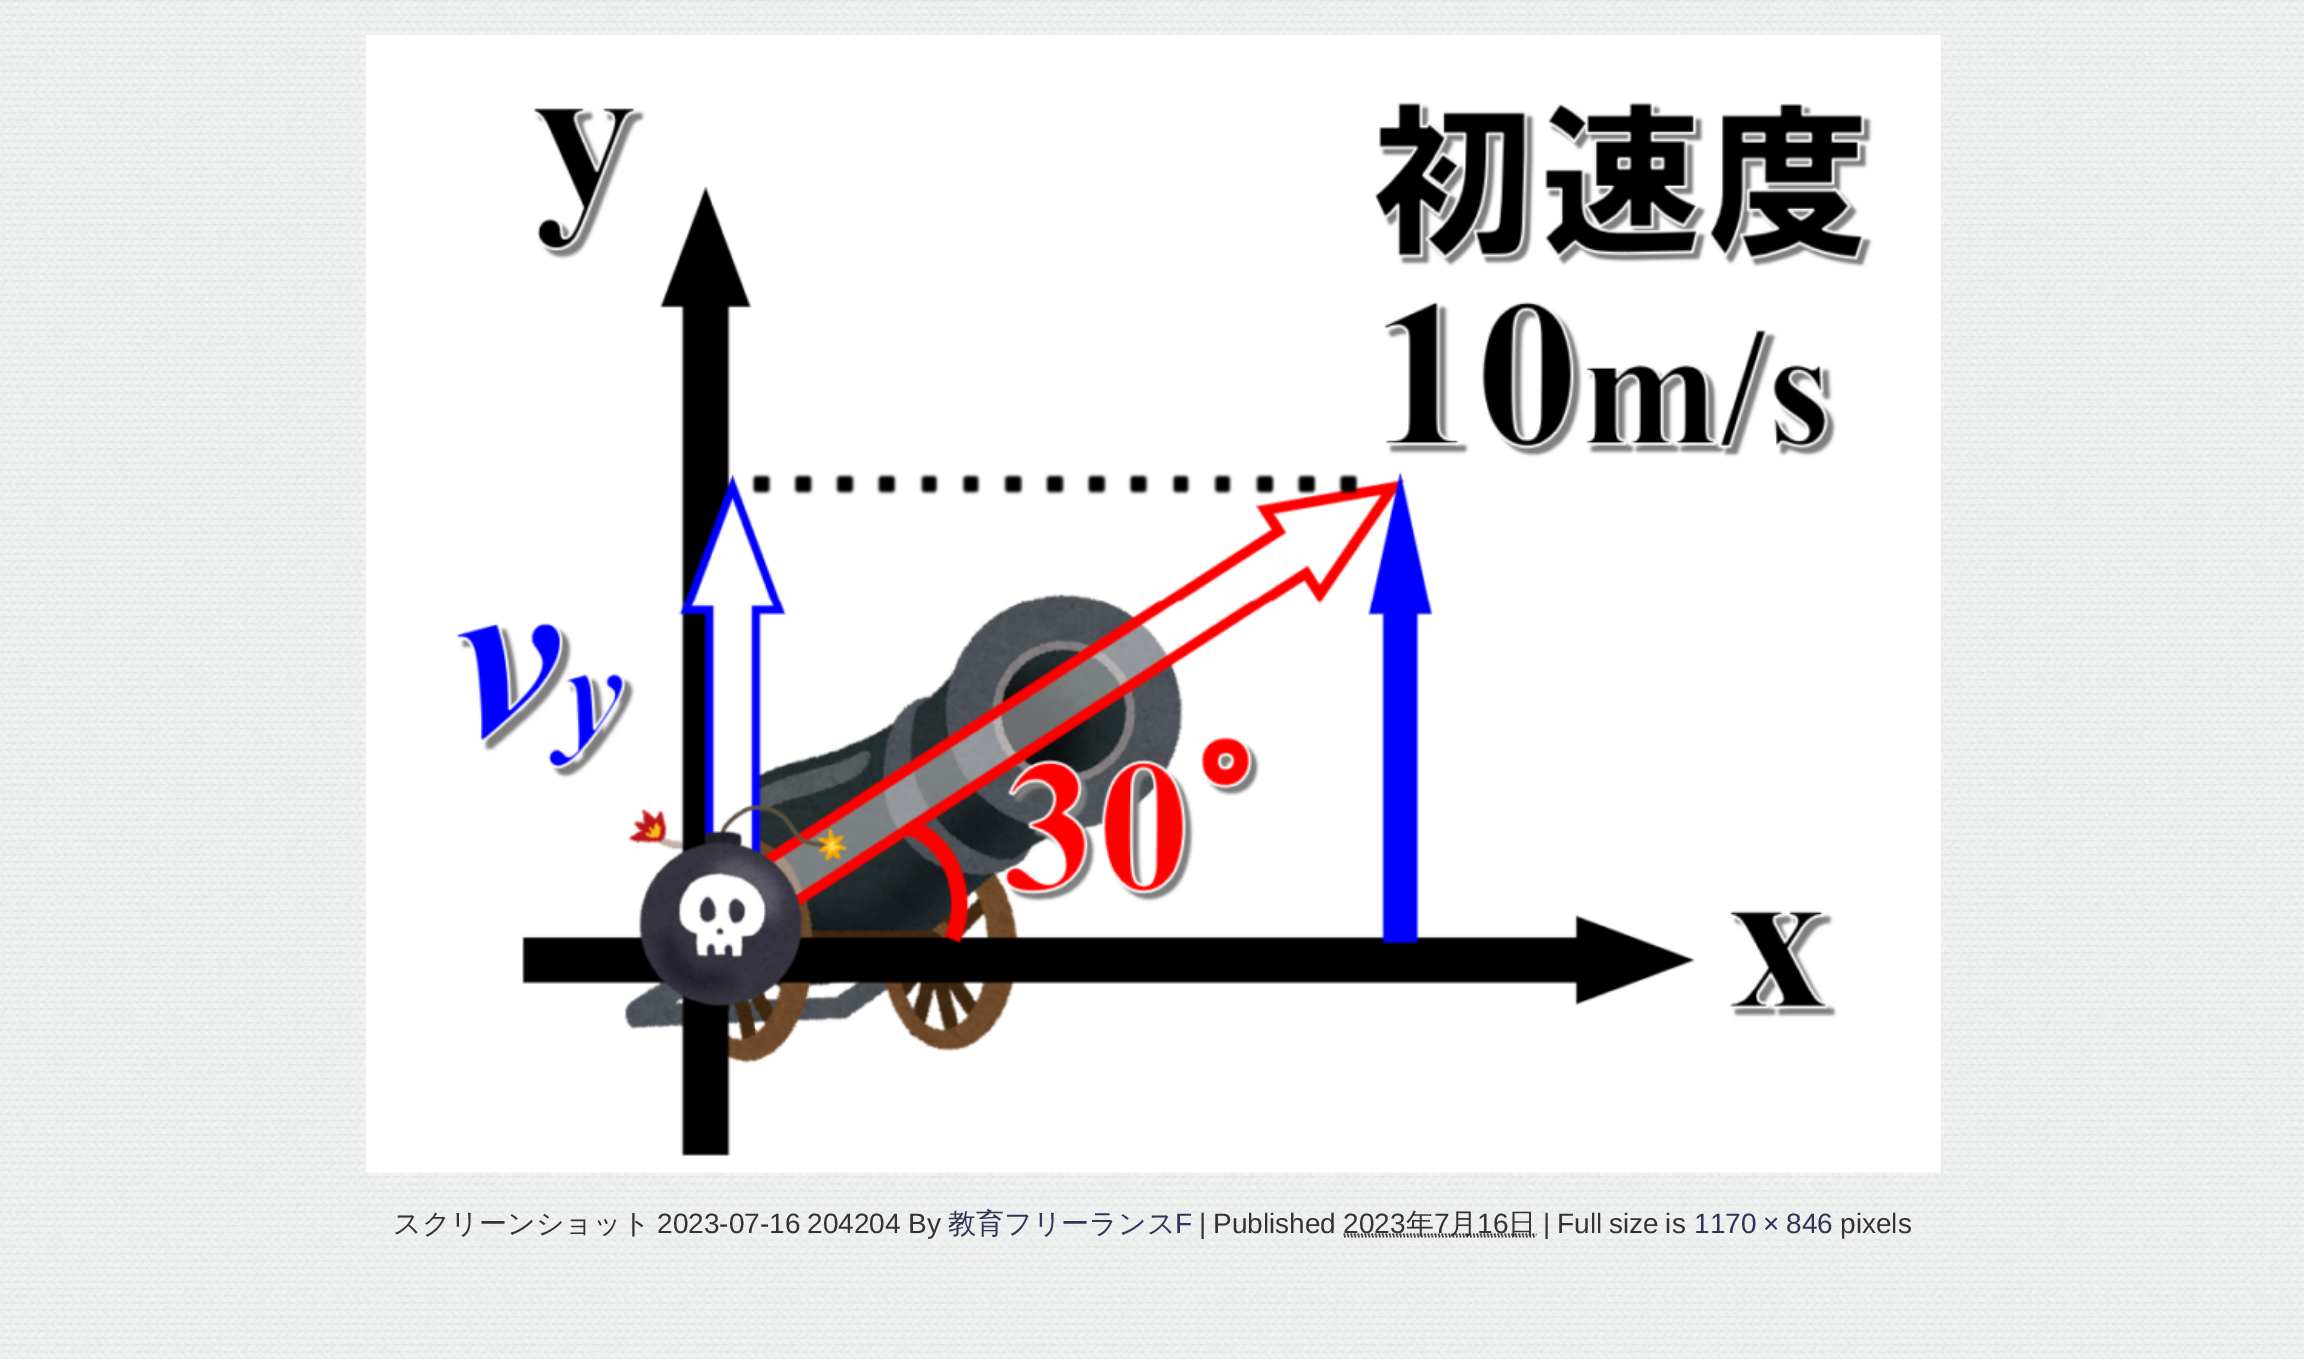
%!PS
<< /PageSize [2304 1359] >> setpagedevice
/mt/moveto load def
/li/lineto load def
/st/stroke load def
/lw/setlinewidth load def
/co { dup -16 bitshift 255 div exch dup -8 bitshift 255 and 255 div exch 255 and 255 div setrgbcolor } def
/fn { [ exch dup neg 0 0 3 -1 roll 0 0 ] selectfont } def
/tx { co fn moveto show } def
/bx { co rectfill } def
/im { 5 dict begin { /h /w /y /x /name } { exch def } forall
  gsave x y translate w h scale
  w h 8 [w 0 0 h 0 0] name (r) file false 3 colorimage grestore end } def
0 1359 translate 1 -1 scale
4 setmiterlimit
0 0 2304 1359 16#FFFFFF bx
(media/1.raw) 0 0 2304 1359 im
(media/2.raw) 365 35 1576 1138 im
16#333333 co
1.8 lw
[1.75 1.75] 0 setdash
1344 1236.5 mt 1536.5 1236.5 li st
1343.5 1234.5 mt 1536.5 1234.5 li st
(スクリーンショット) 393 1233 /WenQuanYiZenHei-Medium 28 16#333333 tx
/LiberationSans-Regular 28 fn
657 1233 mt -1 0 32 (2023-07-16 204204) widthshow
(By) 908 1233 /LiberationSans-Regular 28 16#333333 tx
(教育フリーランス) 948 1233 /WenQuanYiZenHei-Medium 28 16#333355 tx
(F) 1175 1233 /LiberationSans-Regular 28 16#333355 tx
(|) 1199 1233 /LiberationSans-Regular 28 16#333333 tx
(Published) 1213 1233 /LiberationSans-Regular 28 16#333333 tx
(2023) 1343 1233 /LiberationSans-Regular 28 16#333333 tx
(年) 1406 1233 /WenQuanYiZenHei-Medium 28 16#333333 tx
(7) 1434 1233 /LiberationSans-Regular 28 16#333333 tx
(月) 1449 1233 /WenQuanYiZenHei-Medium 28 16#333333 tx
(16) 1477 1233 /LiberationSans-Regular 28 16#333333 tx
(日) 1508 1233 /WenQuanYiZenHei-Medium 28 16#333333 tx
(|) 1543 1233 /LiberationSans-Regular 28 16#333333 tx
1557 1233 mt -1 0 32 (Full size is) widthshow
16#333355 co
1694 1233 mt -1 0 32 (1170 × 846) widthshow
(pixels) 1840 1233 /LiberationSans-Regular 28 16#333333 tx
showpage
